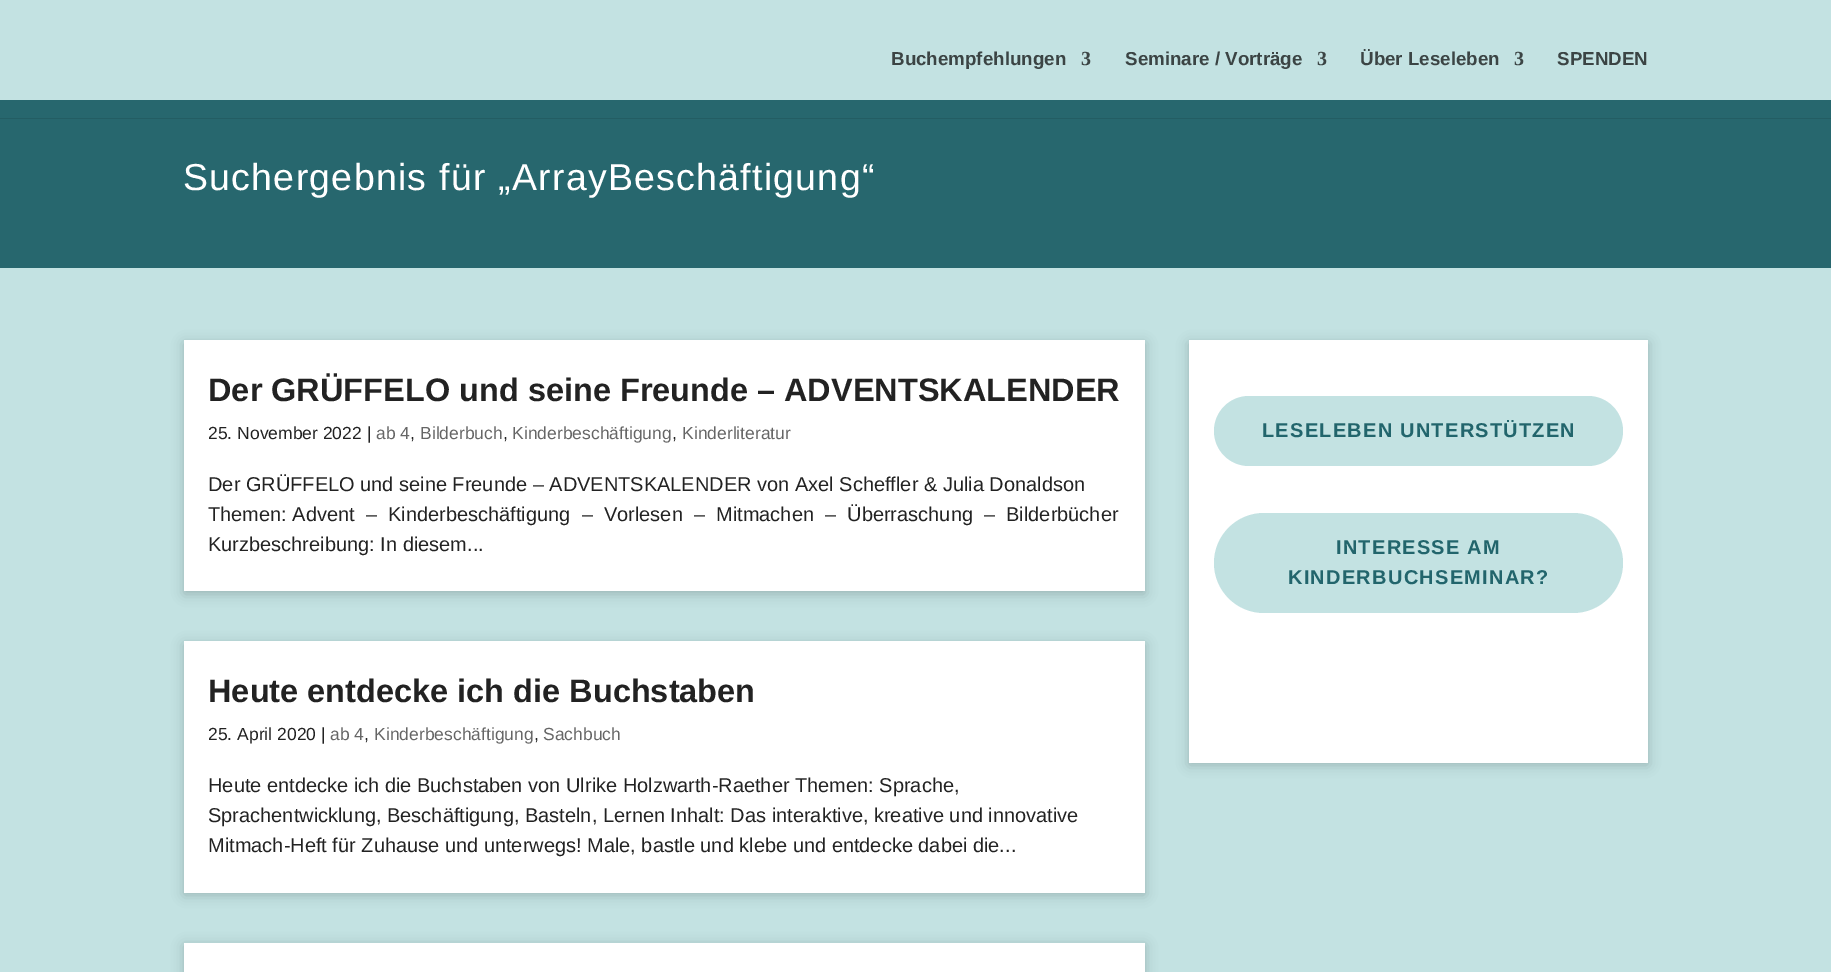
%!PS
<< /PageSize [1831 972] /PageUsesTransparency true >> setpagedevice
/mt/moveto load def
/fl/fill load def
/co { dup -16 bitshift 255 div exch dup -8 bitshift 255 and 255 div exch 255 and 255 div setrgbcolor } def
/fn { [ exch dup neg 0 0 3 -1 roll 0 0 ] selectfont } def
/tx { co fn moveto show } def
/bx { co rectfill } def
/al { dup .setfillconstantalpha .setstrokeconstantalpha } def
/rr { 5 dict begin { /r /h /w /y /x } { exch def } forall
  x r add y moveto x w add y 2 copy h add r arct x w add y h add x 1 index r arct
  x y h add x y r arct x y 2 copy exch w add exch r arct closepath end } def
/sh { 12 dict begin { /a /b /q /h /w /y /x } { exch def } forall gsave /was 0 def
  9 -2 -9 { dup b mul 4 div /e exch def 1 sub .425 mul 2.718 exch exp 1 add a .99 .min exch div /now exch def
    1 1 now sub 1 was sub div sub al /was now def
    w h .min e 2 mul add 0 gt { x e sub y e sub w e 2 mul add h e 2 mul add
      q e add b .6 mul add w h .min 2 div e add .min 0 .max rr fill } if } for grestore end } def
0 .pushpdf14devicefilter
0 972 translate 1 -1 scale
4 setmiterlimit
0 0 1831 972 16#C3E2E2 bx
0 100 1831 168 16#27676E bx
0 118 1831 1 16#235D63 bx
16#000000 co
184 343 961 251 0 6 .2 sh
184 340 961 251 16#FFFFFF bx
16#000000 co
184 644 961 251 0 6 .2 sh
184 641 961 252 16#FFFFFF bx
16#000000 co
184 945 961 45 0 6 .2 sh
184 943 961 29 16#FFFFFF bx
16#000000 co
1189 343 459 422 0 6 .2 sh
1189 340 459 423 16#FFFFFF bx
16#C3E2E2 co
1214 396 409 70 35 rr fl
1214 513 409 100 50 rr fl
(Buchempfehlungen) 891 65 /LiberationSans-Bold 18.75 16#3B4444 tx
(3) 1081 65 /LiberationSerif-Bold 20 16#3B4444 tx
(Seminare / Vorträge) 1125 65 /LiberationSans-Bold 18.75 16#3B4444 tx
(3) 1317 65 /LiberationSerif-Bold 20 16#3B4444 tx
(Über Leseleben) 1360 65 /LiberationSans-Bold 18.75 16#3B4444 tx
(3) 1514 65 /LiberationSerif-Bold 20 16#3B4444 tx
(SPENDEN) 1557 65 /LiberationSans-Bold 18.75 16#3B4444 tx
/LiberationSans-Regular 37.5 fn
16#FFFFFF co
183 190 mt 1.25 0 (Suchergebnis für „ArrayBeschäftigung“) ashow
(Der GRÜFFELO und seine Freunde – ADVENTSKALENDER) 208 401 /LiberationSans-Bold 32.5 16#222222 tx
(25. November 2022 |) 208 439 /LiberationSans-Regular 17.5 16#222222 tx
(ab 4) 376 439 /LiberationSans-Regular 17.5 16#666666 tx
(,) 410 439 /LiberationSans-Regular 17.5 16#222222 tx
(Bilderbuch) 420 439 /LiberationSans-Regular 17.5 16#666666 tx
(,) 503 439 /LiberationSans-Regular 17.5 16#222222 tx
(Kinderbeschäftigung) 512 439 /LiberationSans-Regular 17.5 16#666666 tx
(,) 672 439 /LiberationSans-Regular 17.5 16#222222 tx
(Kinderliteratur) 682 439 /LiberationSans-Regular 17.5 16#666666 tx
(Der GRÜFFELO und seine Freunde – ADVENTSKALENDER von Axel Scheffler & Julia Donaldson) 208 491 /LiberationSans-Regular 20 16#222222 tx
(Themen: Advent  –  Kinderbeschäftigung  –  Vorlesen  –  Mitmachen  –  Überraschung  –  Bilderbücher) 208 521 /LiberationSans-Regular 20 16#222222 tx
(Kurzbeschreibung: In diesem...) 208 551 /LiberationSans-Regular 20 16#222222 tx
(Heute entdecke ich die Buchstaben) 208 702 /LiberationSans-Bold 32.5 16#222222 tx
(25. April 2020 |) 208 740 /LiberationSans-Regular 17.5 16#222222 tx
(ab 4) 330 740 /LiberationSans-Regular 17.5 16#666666 tx
(,) 364 740 /LiberationSans-Regular 17.5 16#222222 tx
(Kinderbeschäftigung) 374 740 /LiberationSans-Regular 17.5 16#666666 tx
(,) 534 740 /LiberationSans-Regular 17.5 16#222222 tx
(Sachbuch) 543 740 /LiberationSans-Regular 17.5 16#666666 tx
(Heute entdecke ich die Buchstaben von Ulrike Holzwarth-Raether Themen: Sprache,) 208 792 /LiberationSans-Regular 20 16#222222 tx
(Sprachentwicklung, Beschäftigung, Basteln, Lernen Inhalt: Das interaktive, kreative und innovative) 208 822 /LiberationSans-Regular 20 16#222222 tx
(Mitmach-Heft für Zuhause und unterwegs! Male, bastle und klebe und entdecke dabei die...) 208 852 /LiberationSans-Regular 20 16#222222 tx
/LiberationSans-Bold 20 fn
16#22656C co
1262 437 mt 1.25 0 (LESELEBEN UNTERSTÜTZEN) ashow
1336 554 mt 1.25 0 (INTERESSE AM) ashow
1288 584 mt 1.25 0 (KINDERBUCHSEMINAR?) ashow
.poppdf14devicefilter showpage
